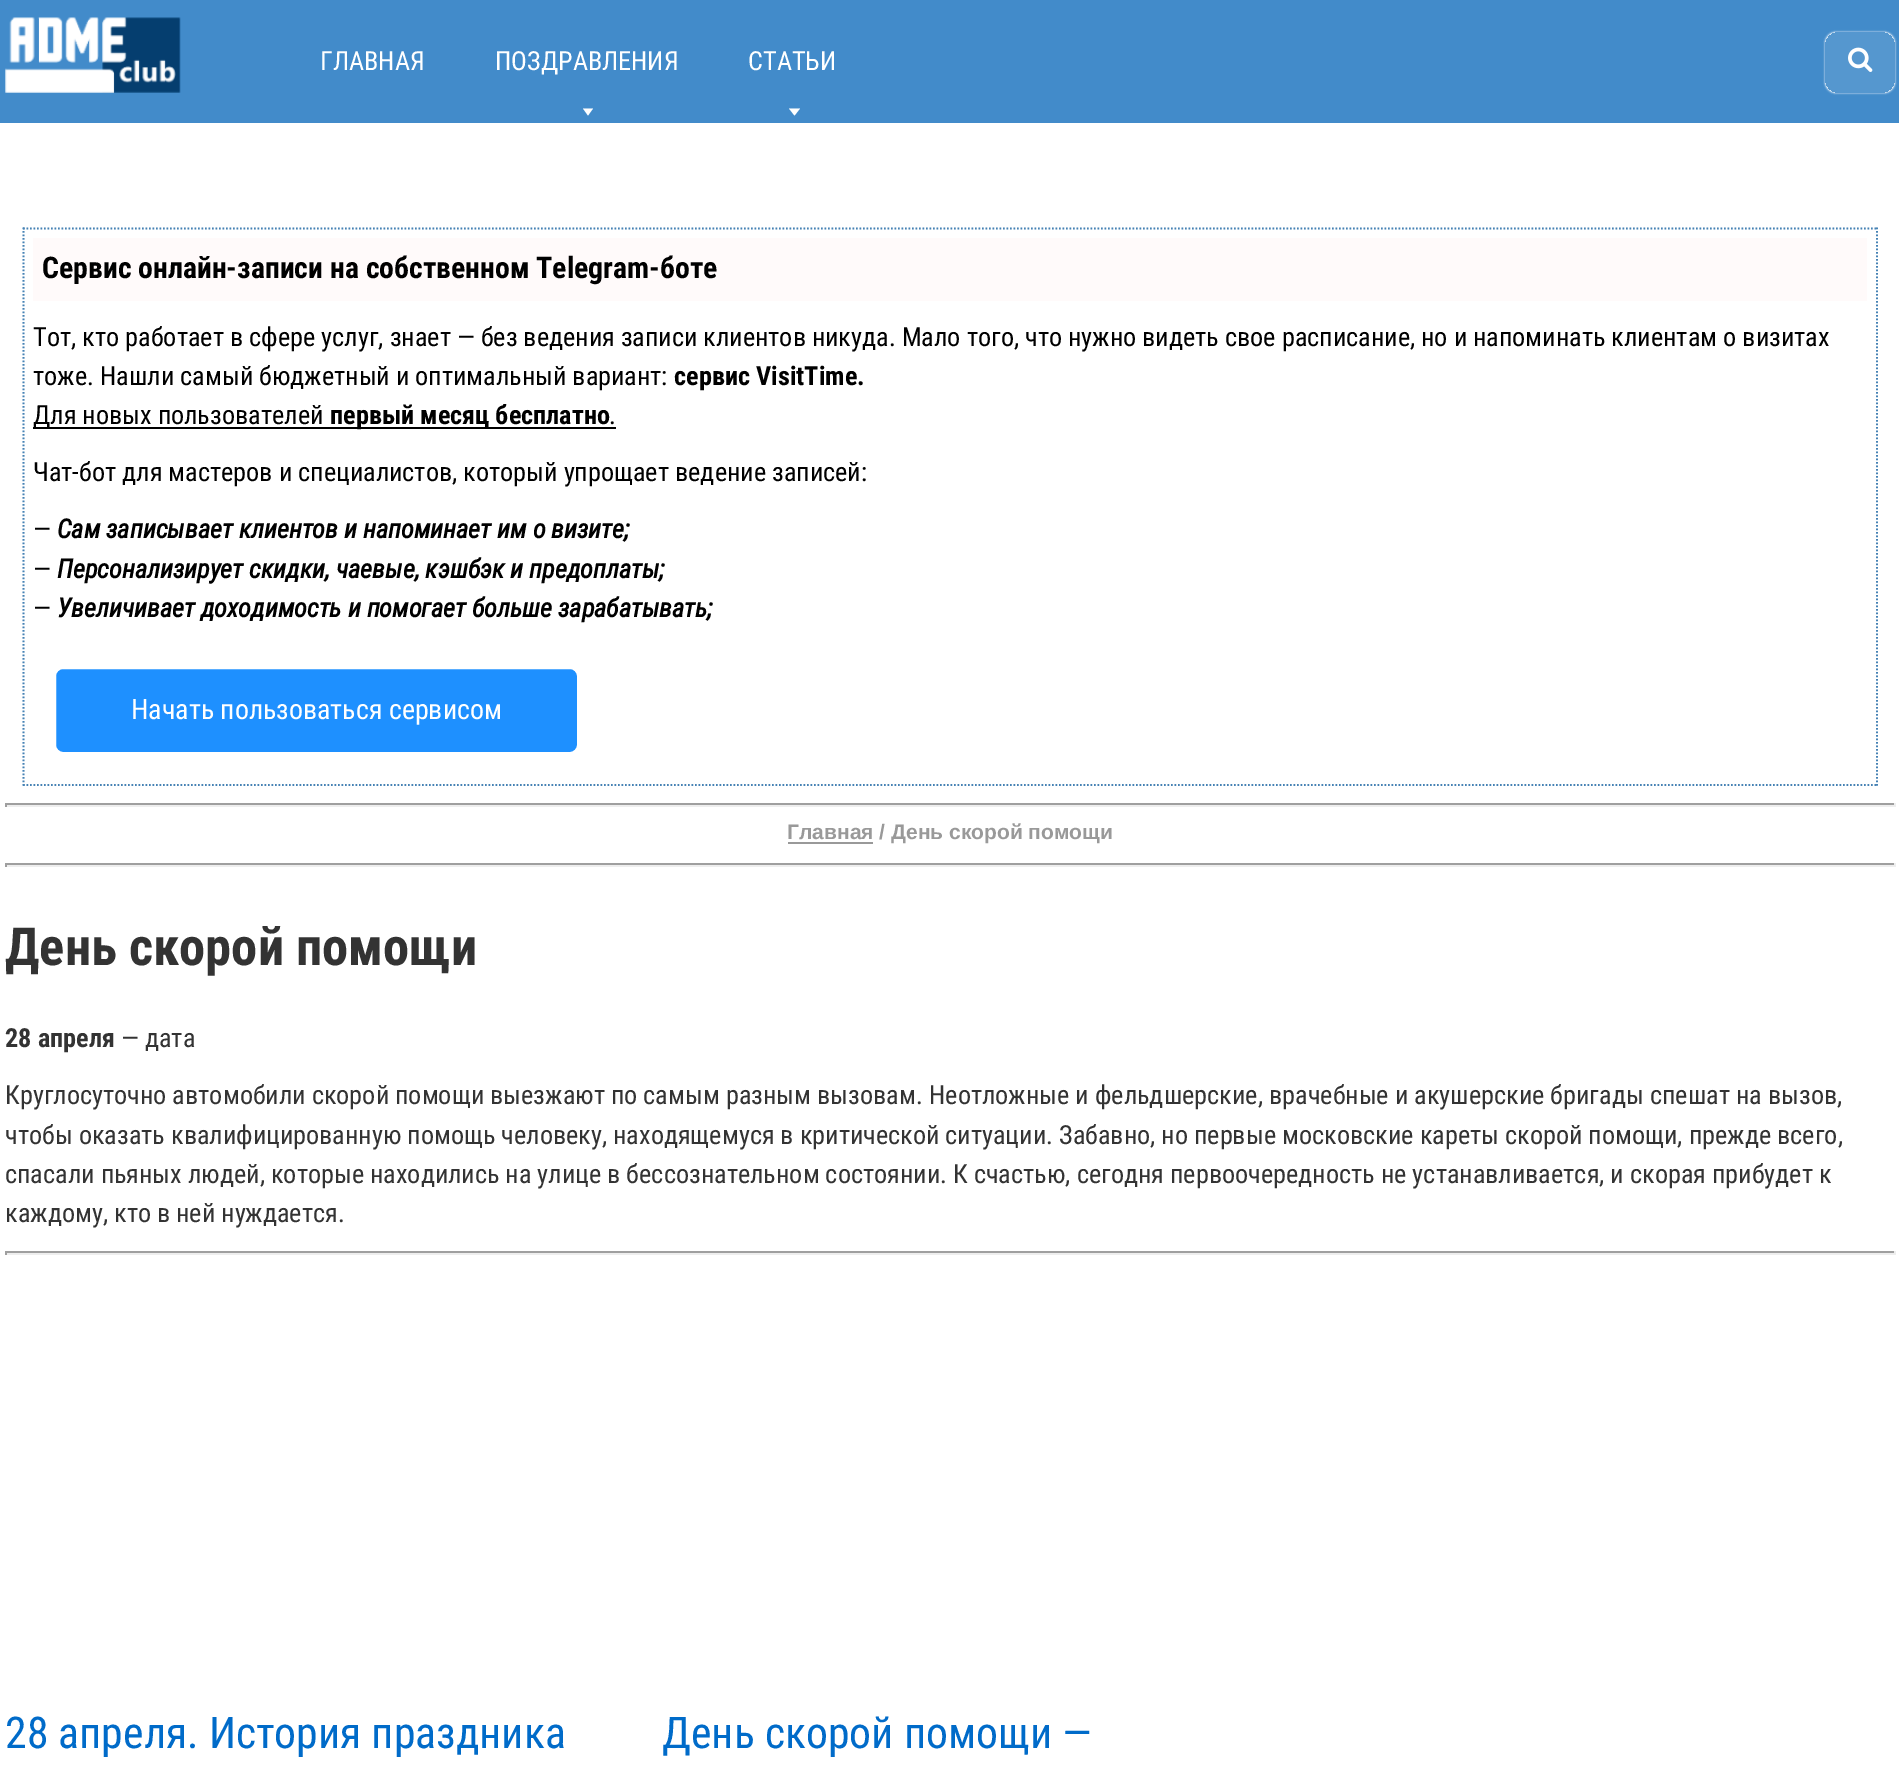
%!PS
<< /PageSize [1899 1785] /PageUsesTransparency true >> setpagedevice
/mt/moveto load def
/li/lineto load def
/ct/curveto load def
/cp/closepath load def
/fl/fill load def
/st/stroke load def
/gs/gsave load def
/gr/grestore load def
/lw/setlinewidth load def
/co { dup -16 bitshift 255 div exch dup -8 bitshift 255 and 255 div exch 255 and 255 div setrgbcolor } def
/fn { [ exch dup neg 0 0 3 -1 roll 0 0 ] selectfont } def
/tx { co fn moveto show } def
/bx { co rectfill } def
/al { dup .setfillconstantalpha .setstrokeconstantalpha } def
/rr { 5 dict begin { /r /h /w /y /x } { exch def } forall
  x r add y moveto x w add y 2 copy h add r arct x w add y h add x 1 index r arct
  x y h add x y r arct x y 2 copy exch w add exch r arct closepath end } def
/sh { 12 dict begin { /a /b /q /h /w /y /x } { exch def } forall gsave /was 0 def
  9 -2 -9 { dup b mul 4 div /e exch def 1 sub .425 mul 2.718 exch exp 1 add a .99 .min exch div /now exch def
    1 1 now sub 1 was sub div sub al /was now def
    w h .min e 2 mul add 0 gt { x e sub y e sub w e 2 mul add h e 2 mul add
      q e add b .6 mul add w h .min 2 div e add .min 0 .max rr fill } if } for grestore end } def
/im { 5 dict begin { /h /w /y /x /name } { exch def } forall
  gsave x y translate w h scale
  w h 8 [w 0 0 h 0 0] name (r) file false 3 colorimage grestore end } def
0 .pushpdf14devicefilter
0 1785 translate 1 -1 scale
4 setmiterlimit
0 0 1899 1785 16#FFFFFF bx
0 0 1899 123 16#428BCA bx
(media/1.raw) 5 17 176 76 im
16#FFFFFF co
583 108.5 mt 593 108.5 li 588 115.5 li cp fl
789 108.5 mt 800 108.5 li 794.5 115.5 li cp fl
gs
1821 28 mt 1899 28 li 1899 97 li 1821 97 li cp 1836 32 mt 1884 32 li 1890 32 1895 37 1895 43 ct 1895 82 li 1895 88 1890 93 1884 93 ct 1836 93 li 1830 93 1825 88 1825 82 ct 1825 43 li 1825 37 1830 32 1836 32 ct cp eoclip newpath
1825 32 70 61 11 1 1 sh
gr
0.1 al
1825 32 70 61 11 rr fl
1 al
(media/2.raw) 1848 47 25 25 im
16#4682B4 co
1.8 lw
[1.75 1.75] 0 setdash
23 228.5 mt 1878 228.5 li st
1877 227.5 mt 1877 786 li st
23 785 mt 1878 785 li st
23.5 227.5 mt 23.5 786 li st
33 238 1834 63 16#FFFAFA bx
33 427 583 2 16#000000 bx
16#1E90FF co
55 668 523 85 8 rr gs fl gr
16#FFFFFF co
2 lw
[] 0 setdash
st
5 803 1890 2 16#9F9F9F bx
1894 803 2 4 16#EEEEEE bx
5 805 1890 2 16#EEEEEE bx
5 803 2 4 16#9F9F9F bx
788 842 85 2 16#999999 bx
5 863 1890 2 16#9F9F9F bx
1894 863 2 4 16#EEEEEE bx
5 865 1890 2 16#EEEEEE bx
5 863 2 4 16#9F9F9F bx
5 1251 1890 2 16#9F9F9F bx
1894 1251 2 4 16#EEEEEE bx
5 1253 1890 2 16#EEEEEE bx
5 1251 2 4 16#9F9F9F bx
(ГЛАВНАЯ) 320 70 /RobotoCondensed-Regular 26.25 16#FFFFFF tx
(ПОЗДРАВЛЕНИЯ) 495 70 /RobotoCondensed-Regular 26.25 16#FFFFFF tx
(СТАТЬИ) 748 70 /RobotoCondensed-Regular 26.25 16#FFFFFF tx
(Сервис онлайн-записи на собственном Telegram-боте) 42 278 /RobotoCondensed-Bold 29.75 16#000000 tx
(Тот, кто работает в сфере услуг, знает — без ведения записи клиентов никуда. Мало того, что нужно видеть свое расписание, но и напоминать клиентам о визитах) 33 346 /RobotoCondensed-Regular 26.25 16#000000 tx
(тоже. Нашли самый бюджетный и оптимальный вариант:) 33 385 /RobotoCondensed-Regular 26.25 16#000000 tx
(сервис VisitTime.) 674 385 /RobotoCondensed-Bold 26.25 16#000000 tx
(Для новых пользователей) 33 424 /RobotoCondensed-Regular 26.25 16#000000 tx
(первый месяц бесплатно) 330 424 /RobotoCondensed-Bold 26.25 16#000000 tx
(.) 609 424 /RobotoCondensed-Regular 26.25 16#000000 tx
(Чат-бот для мастеров и специалистов, который упрощает ведение записей:) 33 481 /RobotoCondensed-Regular 26.25 16#000000 tx
(—) 33 538 /RobotoCondensed-Regular 26.25 16#000000 tx
(Сам записывает клиентов и напоминает им о визите;) 57 538 /RobotoCondensed-BoldItalic 26.25 16#000000 tx
(—) 33 578 /RobotoCondensed-Regular 26.25 16#000000 tx
(Персонализирует скидки, чаевые, кэшбэк и предоплаты;) 57 578 /RobotoCondensed-BoldItalic 26.25 16#000000 tx
(—) 33 617 /RobotoCondensed-Regular 26.25 16#000000 tx
(Увеличивает доходимость и помогает больше зарабатывать;) 57 617 /RobotoCondensed-BoldItalic 26.25 16#000000 tx
(Начать пользоваться сервисом) 131 719 /RobotoCondensed-Regular 28 16#FFFFFF tx
(Главная / День скорой помощи) 787 839 /LiberationSans-Bold 21 16#999999 tx
(День скорой помощи) 5 965 /RobotoCondensed-Bold 52.5 16#333333 tx
(28 апреля) 5 1047 /RobotoCondensed-Bold 26.25 16#333333 tx
(— дата) 121 1047 /RobotoCondensed-Regular 26.25 16#333333 tx
(Круглосуточно автомобили скорой помощи выезжают по самым разным вызовам. Неотложные и фельдшерские, врачебные и акушерские бригады спешат на вызов,) 5 1104 /RobotoCondensed-Regular 26.25 16#333333 tx
(чтобы оказать квалифицированную помощь человеку, находящемуся в критической ситуации. Забавно, но первые московские кареты скорой помощи, прежде всего,) 5 1144 /RobotoCondensed-Regular 26.25 16#333333 tx
(спасали пьяных людей, которые находились на улице в бессознательном состоянии. К счастью, сегодня первоочередность не устанавливается, и скорая прибудет к) 5 1183 /RobotoCondensed-Regular 26.25 16#333333 tx
(каждому, кто в ней нуждается.) 5 1222 /RobotoCondensed-Regular 26.25 16#333333 tx
(28 апреля. История праздника) 5 1748 /RobotoCondensed-Regular 43.75 16#006BC9 tx
(День скорой помощи —) 662 1748 /RobotoCondensed-Regular 43.75 16#006BC9 tx
.poppdf14devicefilter showpage
